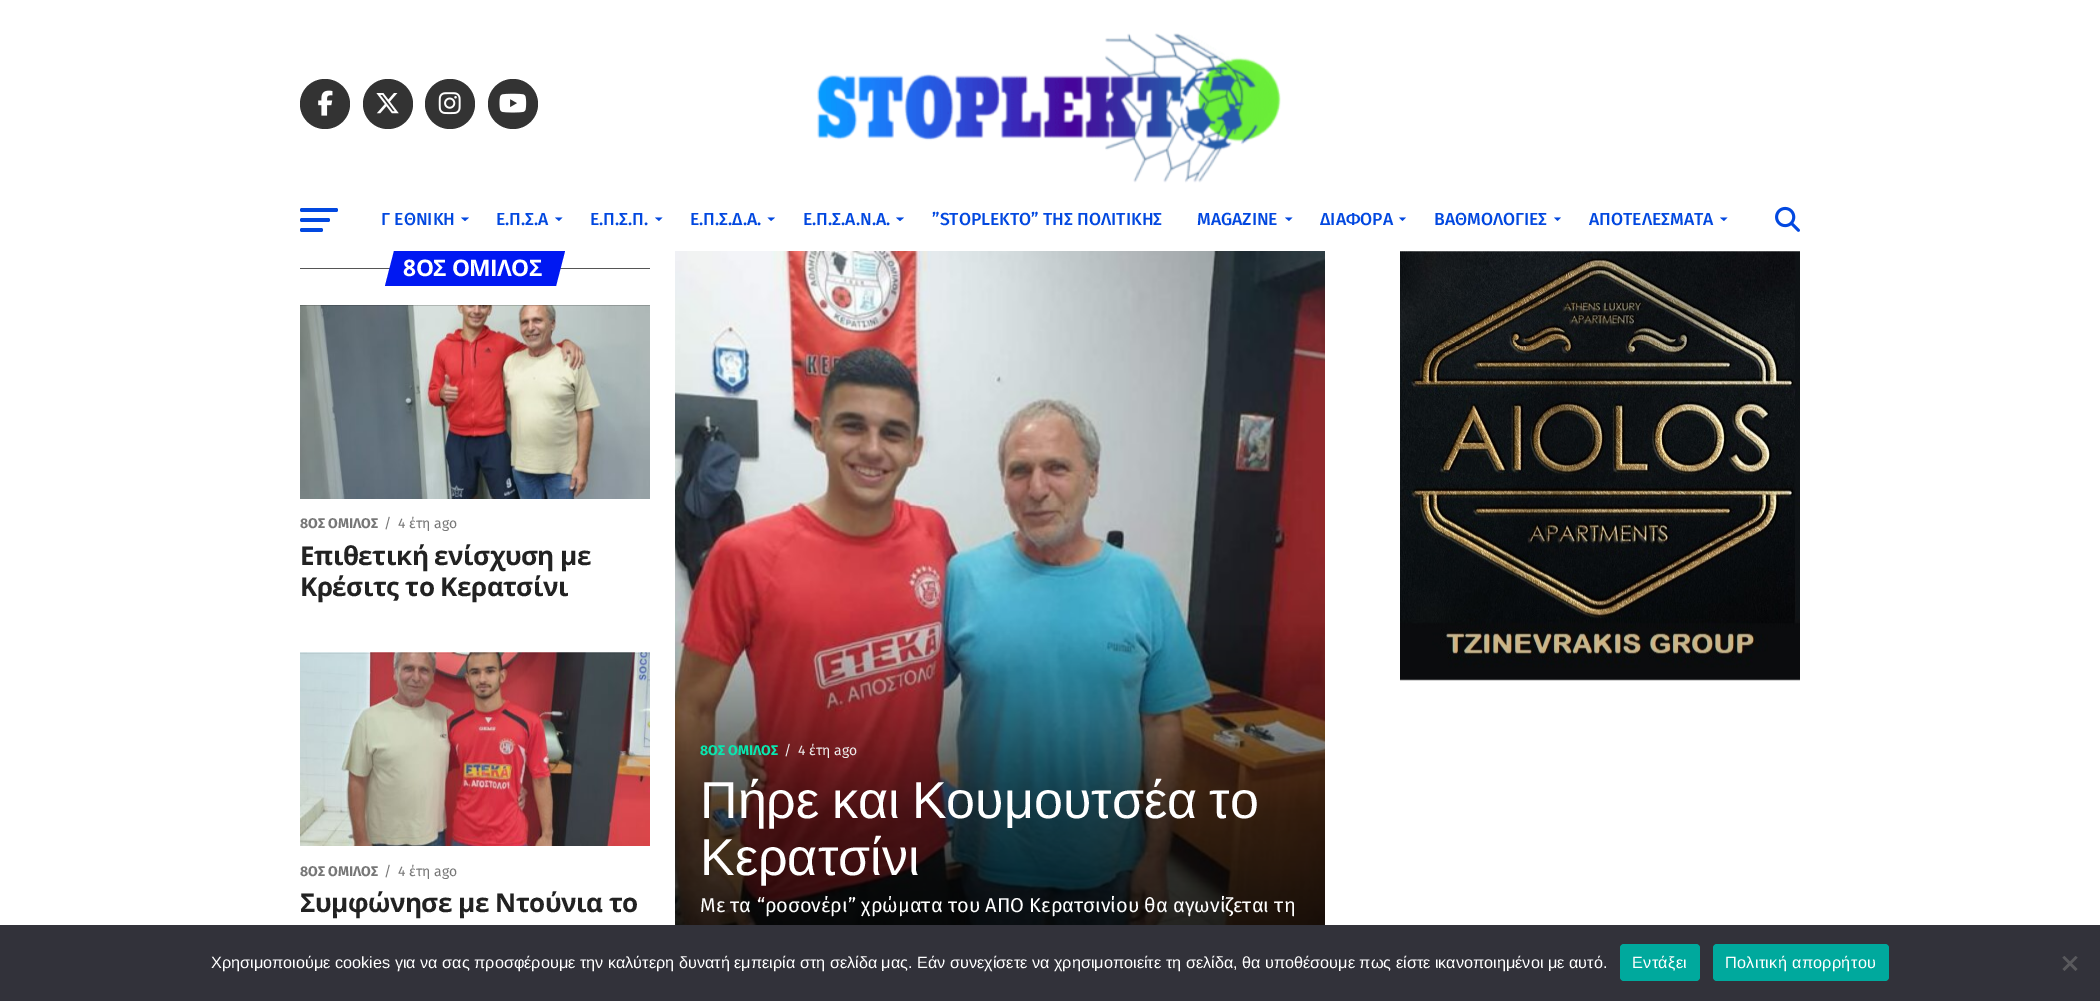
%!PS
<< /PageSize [2100 1001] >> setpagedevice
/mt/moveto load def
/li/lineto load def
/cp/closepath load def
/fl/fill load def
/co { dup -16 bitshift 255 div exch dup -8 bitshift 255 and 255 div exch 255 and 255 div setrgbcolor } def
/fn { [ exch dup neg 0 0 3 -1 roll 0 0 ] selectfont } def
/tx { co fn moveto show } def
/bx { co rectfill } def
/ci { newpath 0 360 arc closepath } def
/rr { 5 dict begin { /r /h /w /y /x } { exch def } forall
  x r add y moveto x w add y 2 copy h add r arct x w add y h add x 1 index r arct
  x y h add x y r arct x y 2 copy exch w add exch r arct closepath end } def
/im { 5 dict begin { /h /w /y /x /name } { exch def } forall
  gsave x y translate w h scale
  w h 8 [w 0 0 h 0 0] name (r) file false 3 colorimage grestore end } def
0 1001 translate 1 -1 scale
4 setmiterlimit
0 0 2100 1001 16#FFFFFF bx
16#333333 co
325 104 25 ci fl
(media/1.raw) 318 90 15 26 im
388 104 25 ci fl
(media/2.raw) 376 93 23 21 im
450 104 25 ci fl
(media/3.raw) 438 92 23 23 im
513 104 25 ci fl
(media/4.raw) 499 93 28 20 im
(media/5.raw) 817 33 464 150 im
16#0248E0 co
300 208 38 4 2 rr fl
300 218 30 4 2 rr fl
300 228 23 4 2 rr fl
461 217.5 mt 469 217.5 li 465 221 li cp fl
555 217.5 mt 562.5 217.5 li 559 221 li cp fl
655 217.5 mt 662.5 217.5 li 659 221 li cp fl
767.5 217.5 mt 775 217.5 li 771 221 li cp fl
896 217.5 mt 904 217.5 li 900 221 li cp fl
1285 217.5 mt 1292.5 217.5 li 1289 221 li cp fl
1399 217.5 mt 1406 217.5 li 1402.5 221 li cp fl
1554 217.5 mt 1561 217.5 li 1557.5 221 li cp fl
1720 217.5 mt 1727.5 217.5 li 1724 221 li cp fl
(media/6.raw) 1775 206 25 26 im
300 268 350 1 16#555555 bx
16#0018F2 co
394 251 mt 565 251 li 556 286 li 385 286 li cp fl
(media/7.raw) 300 305 350 194 im
(media/8.raw) 300 652 350 194 im
(media/9.raw) 675 251 650 674 im
(media/10.raw) 1400 251 400 430 im
0 925 2100 76 16#32323A bx
16#00A99D co
1620 944 80 37 4 rr fl
1713 944 176 37 4 rr fl
16#59595D co
2075.5 956 mt 2077.5 957.5 li 2064.5 971 li 2062.5 969 li cp fl
2062.5 957.5 mt 2064.5 956 li 2077.5 969 li 2075.5 971 li cp fl
(Γ ΕΘΝΙΚΗ) 381 225 /FiraSans-Medium 17.5 16#0248E0 tx
(Ε.Π.Σ.Α) 496 225 /FiraSans-Medium 17.5 16#0248E0 tx
(Ε.Π.Σ.Π.) 590 225 /FiraSans-Medium 17.5 16#0248E0 tx
(Ε.Π.Σ.Δ.Α.) 690 225 /FiraSans-Medium 17.5 16#0248E0 tx
(Ε.Π.Σ.Α.Ν.Α.) 803 225 /FiraSans-Medium 17.5 16#0248E0 tx
(”STOPLEKTO” ΤΗΣ ΠΟΛΙΤΙΚΗΣ) 932 225 /FiraSans-Medium 17.5 16#0248E0 tx
(MAGAZINE) 1197 225 /FiraSans-Medium 17.5 16#0248E0 tx
(ΔΙΑΦΟΡΑ) 1320 225 /FiraSans-Medium 17.5 16#0248E0 tx
(ΒΑΘΜΟΛΟΓΙΕΣ) 1434 225 /FiraSans-Medium 17.5 16#0248E0 tx
(ΑΠΟΤΕΛΕΣΜΑΤΑ) 1589 225 /FiraSans-Medium 17.5 16#0248E0 tx
/OpenSans-Bold 22.75 fn
16#FFFFFF co
403 276 mt -.5 0 (8ΟΣ ΟΜΙΛΟΣ) ashow
(8ΟΣ ΟΜΙΛΟΣ) 300 528 /FiraSans-Bold 14 16#777777 tx
(/) 384 528 /FiraSans-Regular 14 16#777777 tx
(4 έτη ago) 398 528 /FiraSans-Regular 14 16#777777 tx
/OpenSans-Bold 26 fn
16#222222 co
300 565 mt -.5 0 (Επιθετική ενίσχυση με) ashow
300 596 mt -.5 0 (Κρέσιτς το Κερατσίνι) ashow
(8ΟΣ ΟΜΙΛΟΣ) 300 876 /FiraSans-Bold 14 16#777777 tx
(/) 384 876 /FiraSans-Regular 14 16#777777 tx
(4 έτη ago) 398 876 /FiraSans-Regular 14 16#777777 tx
/OpenSans-Bold 26 fn
16#222222 co
300 912 mt -.5 0 (Συμφώνησε με Ντούνια το) ashow
(8ΟΣ ΟΜΙΛΟΣ) 700 755 /FiraSans-Bold 14 16#0BE6AF tx
(/) 784 755 /FiraSans-Regular 14 16#EEEEEE tx
(4 έτη ago) 798 755 /FiraSans-Regular 14 16#EEEEEE tx
/LiberationSans-Regular 52 fn
16#FFFFFF co
700 818 mt -2 0 32 (Πήρε και Κουμουτσέα το) widthshow
(Κερατσίνι) 700 875 /LiberationSans-Regular 52 16#FFFFFF tx
(Με τα “ροσονέρι” χρώματα του ΑΠΟ Κερατσινίου θα αγωνίζεται τη) 700 912 /FiraSans-Regular 20 16#FFFFFF tx
(Χρησιμοποιούμε cookies για να σας προσφέρουμε την καλύτερη δυνατή εμπειρία στη σελίδα μας. Εάν συνεχίσετε να χρησιμοποιείτε τη σελίδα, θα υποθέσουμε πως είστε ικανοποιημένοι με αυτό.) 211 968 /LiberationSans-Regular 16.25 16#FFFFFF tx
1632 968 mt .3 0 (Εντάξει) ashow
1725 968 mt .3 0 (Πολιτική απορρήτου) ashow
showpage
